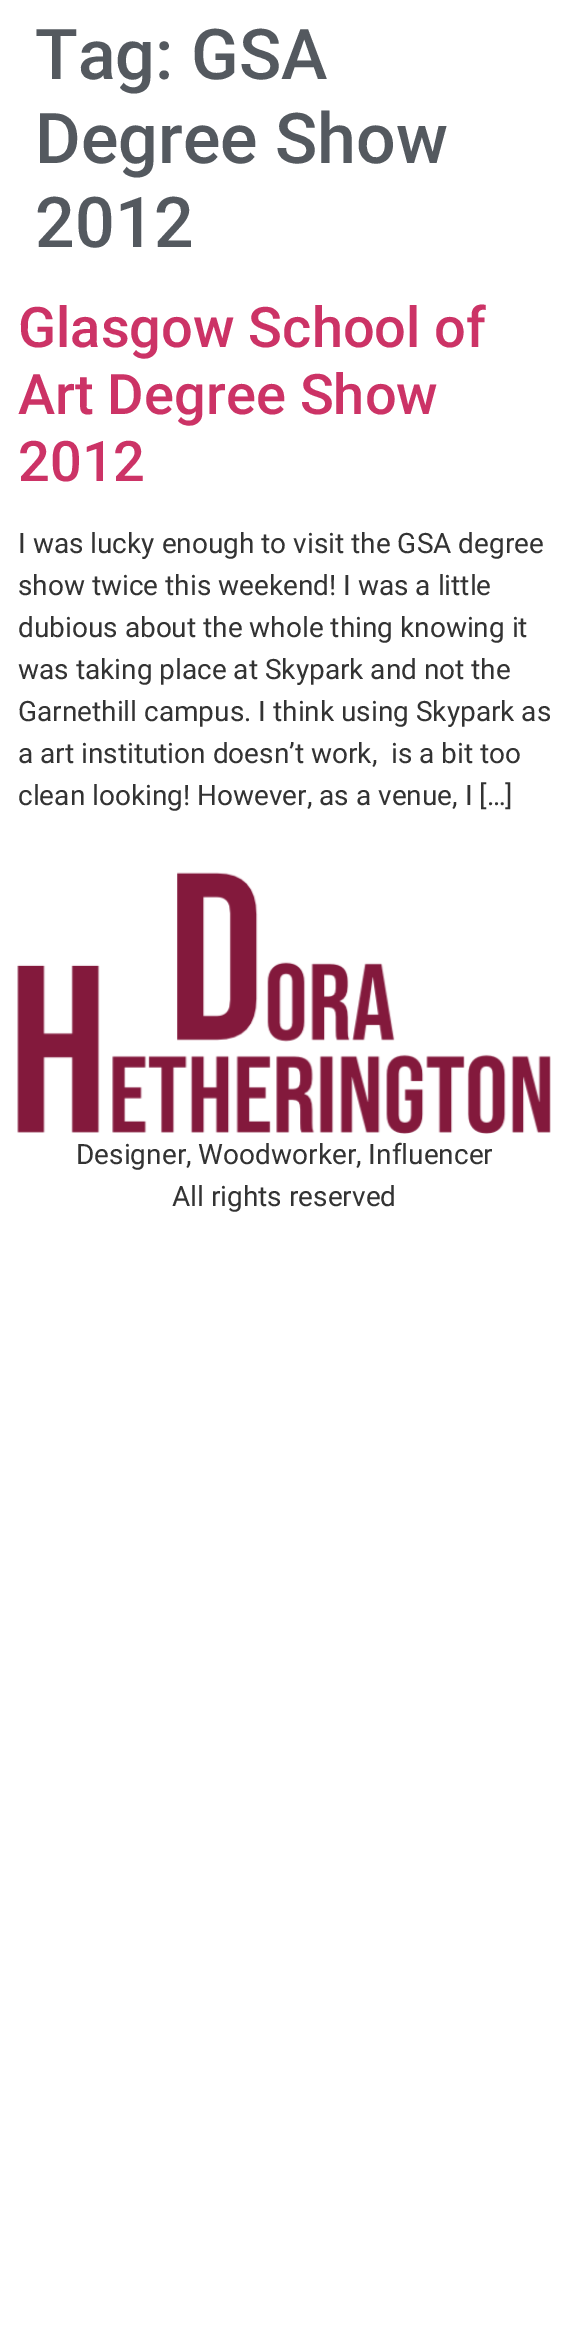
%!PS
<< /PageSize [568 2338] >> setpagedevice
/co { dup -16 bitshift 255 div exch dup -8 bitshift 255 and 255 div exch 255 and 255 div setrgbcolor } def
/fn { [ exch dup neg 0 0 3 -1 roll 0 0 ] selectfont } def
/tx { co fn moveto show } def
/bx { co rectfill } def
/im { 5 dict begin { /h /w /y /x /name } { exch def } forall
  gsave x y translate w h scale
  w h 8 [w 0 0 h 0 0] name (r) file false 3 colorimage grestore end } def
0 2338 translate 1 -1 scale
4 setmiterlimit
0 0 568 2338 16#FFFFFF bx
(media/1.raw) 17 872 534 262 im
(Tag: GSA) 35 79 /Roboto-Medium 70 16#54595F tx
(Degree Show) 35 163 /Roboto-Medium 70 16#54595F tx
(2012) 35 247 /Roboto-Medium 70 16#54595F tx
(Glasgow School of) 18 347 /Roboto-Medium 56 16#CC3366 tx
(Art Degree Show) 18 414 /Roboto-Medium 56 16#CC3366 tx
(2012) 18 481 /Roboto-Medium 56 16#CC3366 tx
(I was lucky enough to visit the GSA degree) 18 553 /Roboto-Regular 28 16#333333 tx
(show twice this weekend! I was a little) 18 595 /Roboto-Regular 28 16#333333 tx
(dubious about the whole thing knowing it) 18 637 /Roboto-Regular 28 16#333333 tx
(was taking place at Skypark and not the) 18 679 /Roboto-Regular 28 16#333333 tx
(Garnethill campus. I think using Skypark as) 18 721 /Roboto-Regular 28 16#333333 tx
(a art institution doesn’t work,  is a bit too) 18 763 /Roboto-Regular 28 16#333333 tx
(clean looking! However, as a venue, I […]) 18 805 /Roboto-Regular 28 16#333333 tx
(Designer, Woodworker, Influencer) 76 1164 /Roboto-Regular 28 16#333333 tx
(All rights reserved) 172 1206 /Roboto-Regular 28 16#333333 tx
showpage
